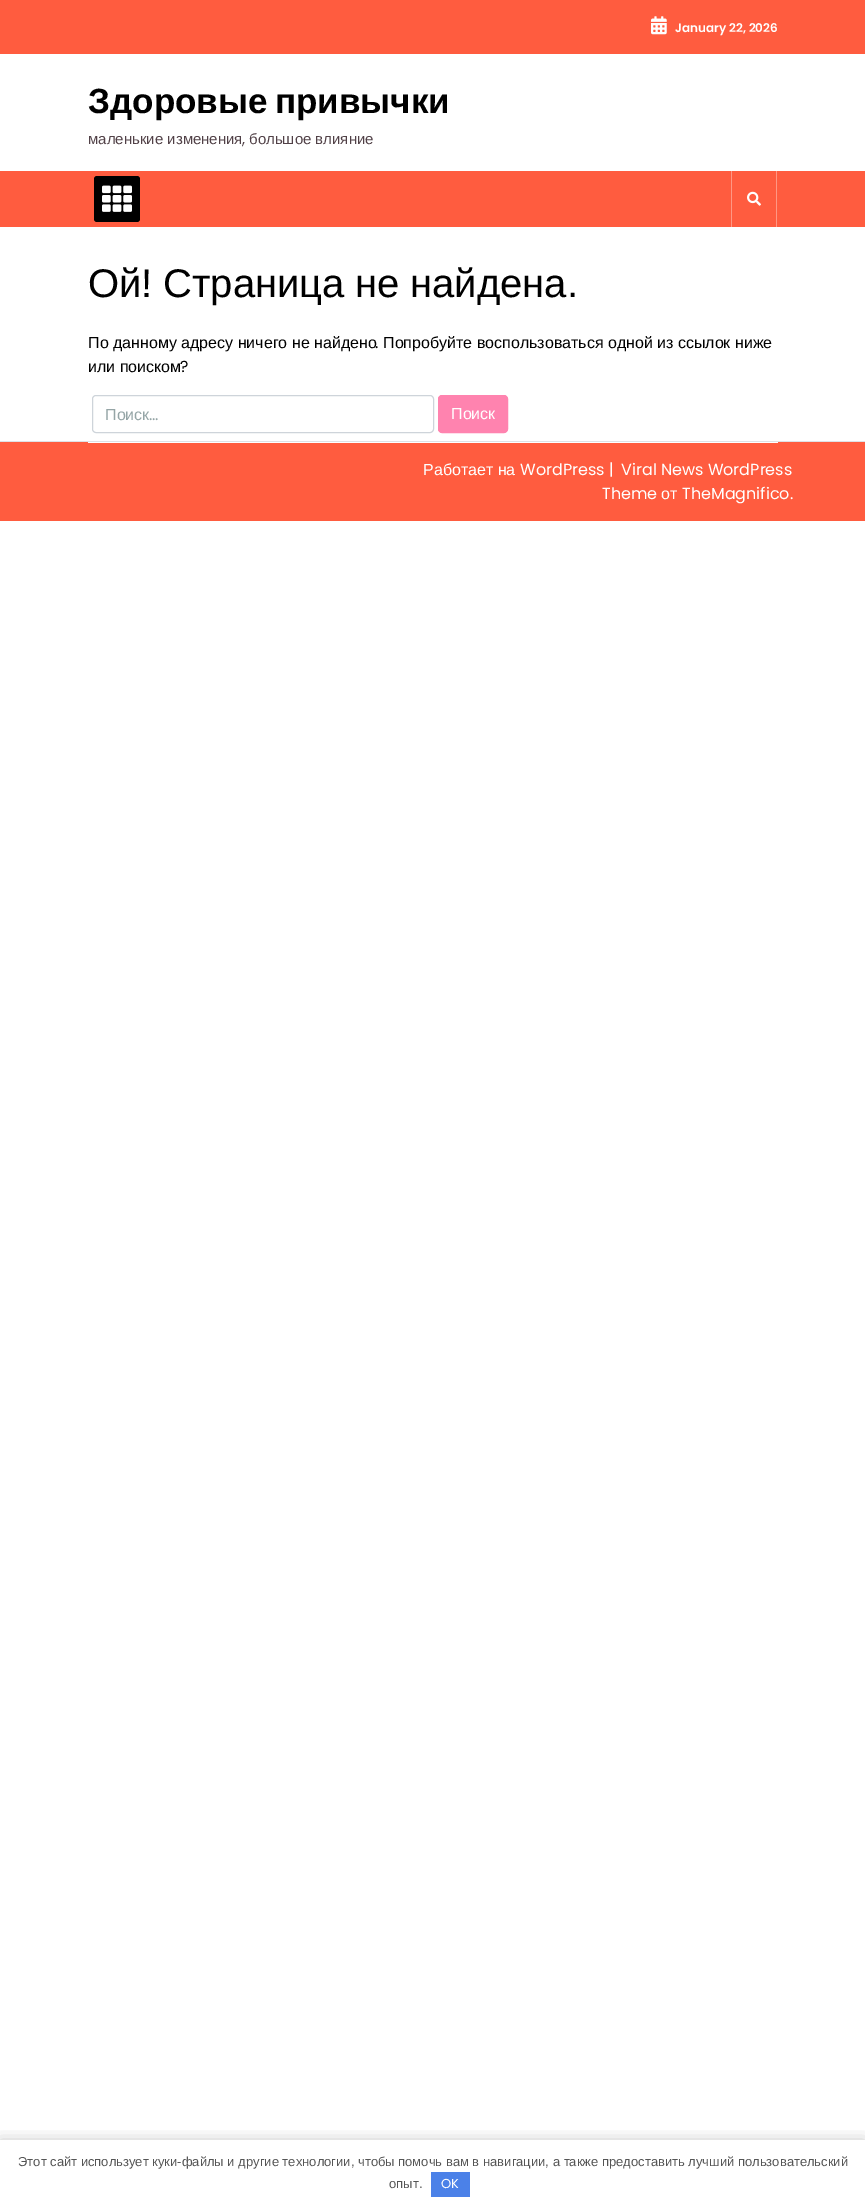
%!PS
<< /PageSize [865 2209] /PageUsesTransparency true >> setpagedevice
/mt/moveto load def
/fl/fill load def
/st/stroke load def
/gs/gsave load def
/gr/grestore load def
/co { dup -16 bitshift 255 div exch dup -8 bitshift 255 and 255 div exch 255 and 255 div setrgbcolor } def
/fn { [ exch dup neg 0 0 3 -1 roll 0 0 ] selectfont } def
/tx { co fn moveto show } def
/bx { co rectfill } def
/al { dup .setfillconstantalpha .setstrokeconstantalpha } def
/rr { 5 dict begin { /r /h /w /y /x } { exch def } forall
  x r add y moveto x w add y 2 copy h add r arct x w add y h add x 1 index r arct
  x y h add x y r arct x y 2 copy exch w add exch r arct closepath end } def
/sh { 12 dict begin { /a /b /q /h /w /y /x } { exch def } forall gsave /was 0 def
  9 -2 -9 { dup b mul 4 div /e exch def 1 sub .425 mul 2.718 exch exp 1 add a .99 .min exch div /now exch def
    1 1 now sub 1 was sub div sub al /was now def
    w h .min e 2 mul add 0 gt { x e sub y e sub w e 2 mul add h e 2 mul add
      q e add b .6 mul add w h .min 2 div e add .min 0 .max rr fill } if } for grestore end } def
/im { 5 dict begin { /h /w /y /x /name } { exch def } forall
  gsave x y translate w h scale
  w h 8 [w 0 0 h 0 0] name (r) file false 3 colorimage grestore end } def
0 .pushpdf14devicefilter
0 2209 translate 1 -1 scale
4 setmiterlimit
0 0 865 2209 16#FFFFFF bx
0 0 865 54 16#FF5C3F bx
(media/1.raw) 651 16 16 19 im
0 171 865 56 16#FF5C3F bx
731 171 1 56 16#FF9784 bx
776 171 1 56 16#FF9784 bx
16#000000 co
94 176 46 46 3 rr fl
(media/2.raw) 102 185 30 27 im
(media/3.raw) 747 191 14 15 im
16#CED4DA co
92.5 395.5 341 37 3.5 rr st
16#FF83AF co
438.5 395.5 69 37 3.5 rr gs fl gr
st
0 442 865 79 16#FF5C3F bx
0 441 865 1 16#DEE2E6 bx
88 442 690 1 16#FFFFFF bx
gs
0 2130 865 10 rectclip
16#000000 co
0 2140 865 69 0 7.5 .2 sh
gr
431 2172 39 25 16#4B81E8 bx
(January 22, 2026) 675 32 /Poppins-SemiBold 12 16#FFFFFF tx
/LiberationSans-Bold 35 fn
16#000000 co
88 113 mt -2 0 32 (Здоровые привычки) widthshow
(маленькие изменения) 88 144 /LiberationSans-Regular 15 16#514147 tx
(,) 242 144 /Poppins-Regular 15 16#514147 tx
(большое влияние) 249 144 /LiberationSans-Regular 15 16#514147 tx
/LiberationSans-Regular 40 fn
16#000000 co
88 297 mt -.5 0 32 (Ой! Страница не найдена.) widthshow
(По данному адресу ничего не найдено) 88 348 /LiberationSans-Regular 16 16#000000 tx
(.) 375 348 /Poppins-Regular 16 16#000000 tx
(Попробуйте воспользоваться одной из ссылок ниже) 383 348 /LiberationSans-Regular 16 16#000000 tx
(или поиском) 88 372 /LiberationSans-Regular 16 16#000000 tx
(?) 180 372 /Poppins-Regular 16 16#000000 tx
(Поиск) 105 420 /LiberationSans-Regular 16 16#95A5A6 tx
(…) 149 420 /Poppins-Regular 16 16#95A5A6 tx
(Поиск) 451 419 /LiberationSans-Regular 16 16#FFFFFF tx
(Работает на) 423 475 /LiberationSans-Regular 16 16#FFFFFF tx
(WordPress |) 520 475 /Poppins-Regular 16 16#FFFFFF tx
(Viral News WordPress) 621 475 /Poppins-Regular 16 16#FFFFFF tx
(Theme) 602 499 /Poppins-Regular 16 16#FFFFFF tx
(от) 661 499 /LiberationSans-Regular 16 16#FFFFFF tx
(TheMagnifico.) 682 499 /Poppins-Regular 16 16#FFFFFF tx
(Этот сайт использует куки-файлы и другие технологии, чтобы помочь вам в навигации, а также предоставить лучший пользовательский) 18 2166 /LiberationSans-Regular 13 16#555555 tx
(опыт.) 389 2188 /LiberationSans-Regular 13 16#555555 tx
(OK) 441 2188 /Poppins-Regular 13 16#FFFFFF tx
.poppdf14devicefilter showpage
